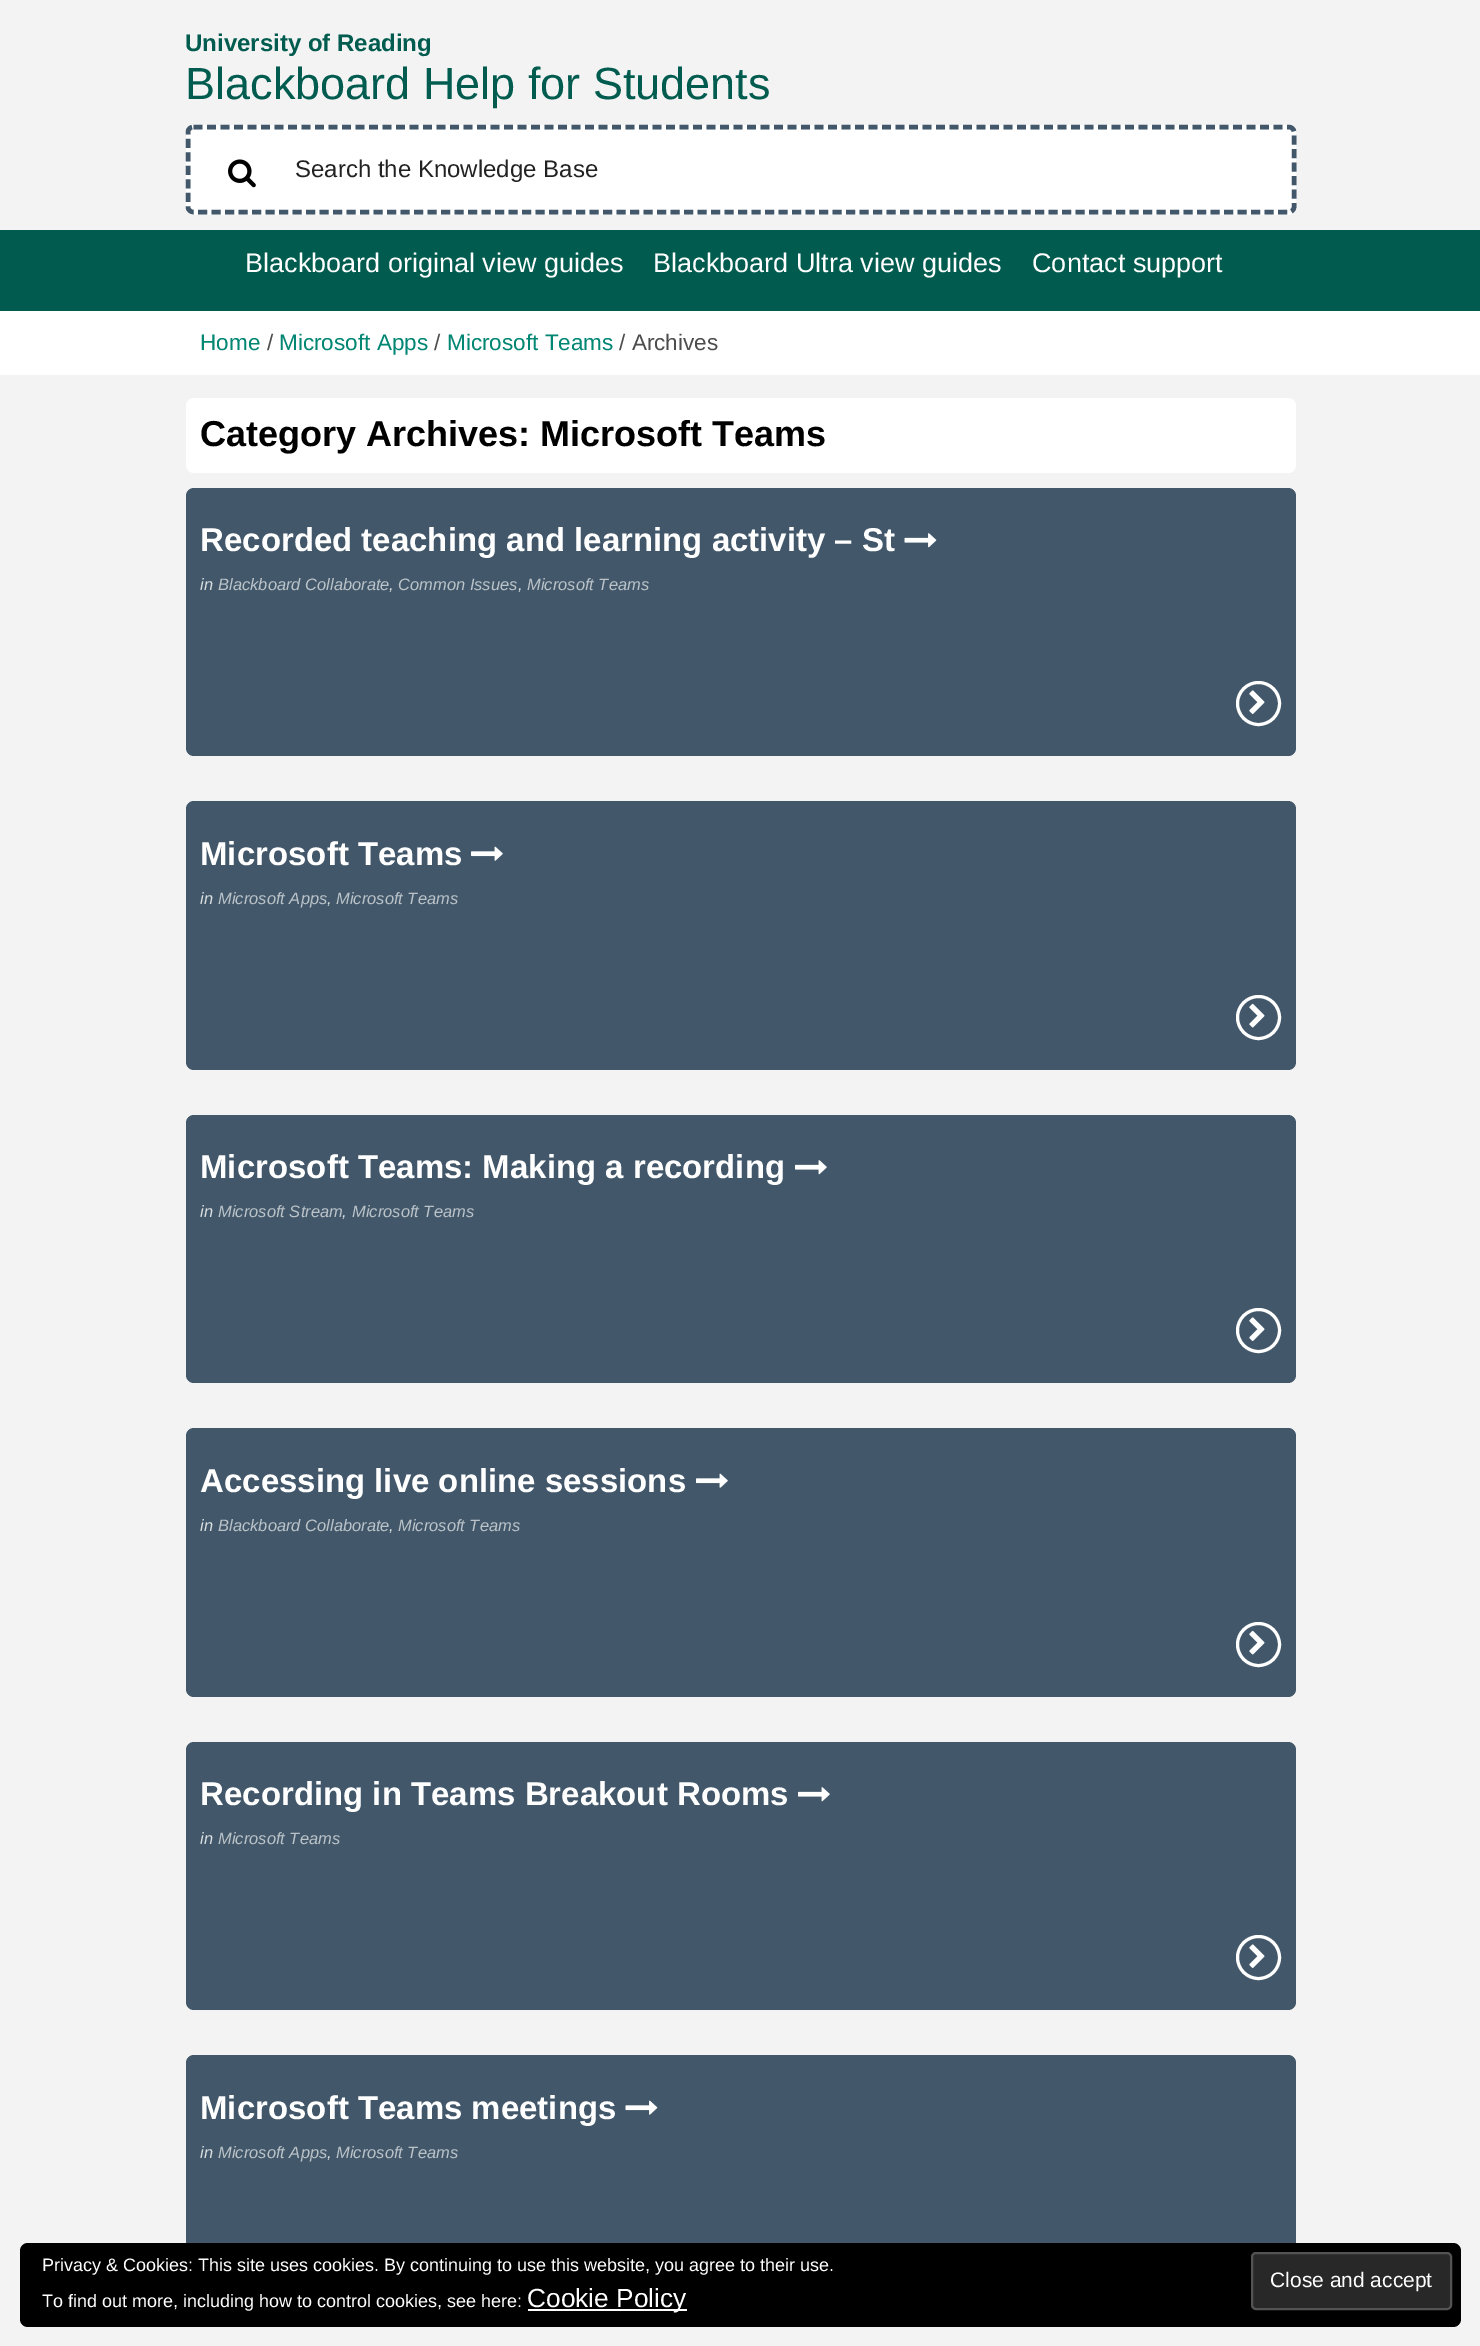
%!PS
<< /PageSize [1480 2346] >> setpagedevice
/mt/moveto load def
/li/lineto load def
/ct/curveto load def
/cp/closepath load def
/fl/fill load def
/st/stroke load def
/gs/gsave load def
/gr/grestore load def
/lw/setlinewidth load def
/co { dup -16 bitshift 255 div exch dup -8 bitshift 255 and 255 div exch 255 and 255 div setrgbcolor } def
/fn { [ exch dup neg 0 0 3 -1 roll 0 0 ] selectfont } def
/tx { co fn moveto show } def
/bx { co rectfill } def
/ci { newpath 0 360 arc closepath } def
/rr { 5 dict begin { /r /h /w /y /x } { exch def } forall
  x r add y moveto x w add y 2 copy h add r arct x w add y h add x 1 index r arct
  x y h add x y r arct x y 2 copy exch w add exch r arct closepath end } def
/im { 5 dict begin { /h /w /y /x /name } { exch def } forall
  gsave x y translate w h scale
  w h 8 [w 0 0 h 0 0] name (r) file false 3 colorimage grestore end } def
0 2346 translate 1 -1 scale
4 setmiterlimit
0 0 1480 2346 16#F3F3F3 bx
0 311 1480 64 16#FFFFFF bx
186 125 1110 90 8 rr fl
16#42586A co
4.5 lw
[9 4.5] 0 setdash
193.5 127 mt 1288.5 127 li 1291.5 127 1294 129 1294 132 ct 1294 207 li 1294 210 1291.5 212 1288.5 212 ct 193.5 212 li 190.5 212 188 210 188 207 ct 188 132 li 188 129 190.5 127 193.5 127 ct cp st
(media/1.raw) 228 159 28 29 im
0 230 1480 81 16#015C4F bx
16#FFFFFF co
186 398 1110 75 8 rr fl
16#42586A co
186 488 1110 268 8 rr fl
(media/2.raw) 904 533 33 15 im
16#FFFFFF co
3 lw
[] 0 setdash
1258.5 703.5 21 ci st
(media/3.raw) 1249 690 16 24 im
16#42586A co
186 801 1110 269 8 rr fl
(media/4.raw) 471 846 32 15 im
16#FFFFFF co
1258.5 1017.5 21 ci st
(media/5.raw) 1249 1003 16 25 im
16#42586A co
186 1115 1110 268 8 rr fl
(media/6.raw) 795 1160 32 15 im
16#FFFFFF co
1258.5 1330.5 21 ci st
(media/3.raw) 1249 1317 16 24 im
16#42586A co
186 1428 1110 269 8 rr fl
(media/4.raw) 696 1473 32 15 im
16#FFFFFF co
1258.5 1644.5 21 ci st
(media/5.raw) 1249 1630 16 25 im
16#42586A co
186 1742 1110 268 8 rr fl
(media/6.raw) 798 1787 32 15 im
16#FFFFFF co
1258.5 1957.5 21 ci st
(media/3.raw) 1249 1944 16 24 im
16#42586A co
186 2055 1110 269 8 rr fl
(media/7.raw) 625 2100 33 15 im
16#000000 co
20 2243 1441 84 8 rr fl
16#282828 co
1252 2253 199 56 4 rr gs fl gr
16#535353 co
2 lw
st
528 2309 159 2 16#FFFFFF bx
(University of Reading) 185 51 /LiberationSans-Bold 24 16#015C4F tx
(Blackboard Help for Students) 185 99 /LiberationSans-Regular 45 16#015C4F tx
(Search the Knowledge Base) 295 177 /LiberationSans-Regular 24 16#222222 tx
(Blackboard original view guides) 245 272 /LiberationSans-Regular 27 16#FFFFFF tx
(Blackboard Ultra view guides) 653 272 /LiberationSans-Regular 27 16#FFFFFF tx
(Contact support) 1032 272 /LiberationSans-Regular 27 16#FFFFFF tx
(Home) 200 350 /LiberationSans-Regular 22.5 16#008673 tx
(/) 267 350 /LiberationSans-Regular 22.5 16#4D4D4D tx
(Microsoft Apps) 279 350 /LiberationSans-Regular 22.5 16#008673 tx
(/) 434 350 /LiberationSans-Regular 22.5 16#4D4D4D tx
(Microsoft Teams) 447 350 /LiberationSans-Regular 22.5 16#008673 tx
(/ Archives) 619 350 /LiberationSans-Regular 22.5 16#4D4D4D tx
(Category Archives: Microsoft Teams) 200 446 /LiberationSans-Bold 36 16#000000 tx
(Recorded teaching and learning activity – St) 200 551 /LiberationSans-Bold 33 16#FFFFFF tx
(in) 200 590 /LiberationSans-Italic 16.5 16#D9DEE1 tx
(Blackboard Collaborate) 218 590 /LiberationSans-Italic 16.5 16#BBC3C9 tx
(,) 389 590 /LiberationSans-Italic 16.5 16#D9DEE1 tx
(,) 518 590 /LiberationSans-Italic 16.5 16#D9DEE1 tx
(Common Issues) 398 590 /LiberationSans-Italic 16.5 16#BBC3C9 tx
(Microsoft Teams) 527 590 /LiberationSans-Italic 16.5 16#BBC3C9 tx
(Microsoft Teams) 200 865 /LiberationSans-Bold 33 16#FFFFFF tx
(in) 200 904 /LiberationSans-Italic 16.5 16#D9DEE1 tx
(Microsoft Apps) 218 904 /LiberationSans-Italic 16.5 16#BBC3C9 tx
(,) 327 904 /LiberationSans-Italic 16.5 16#D9DEE1 tx
(Microsoft Teams) 336 904 /LiberationSans-Italic 16.5 16#BBC3C9 tx
(Microsoft Teams: Making a recording) 200 1178 /LiberationSans-Bold 33 16#FFFFFF tx
(in) 200 1217 /LiberationSans-Italic 16.5 16#D9DEE1 tx
(Microsoft Stream) 218 1217 /LiberationSans-Italic 16.5 16#BBC3C9 tx
(,) 342 1217 /LiberationSans-Italic 16.5 16#D9DEE1 tx
(Microsoft Teams) 352 1217 /LiberationSans-Italic 16.5 16#BBC3C9 tx
(Accessing live online sessions) 200 1492 /LiberationSans-Bold 33 16#FFFFFF tx
(in) 200 1531 /LiberationSans-Italic 16.5 16#D9DEE1 tx
(Blackboard Collaborate) 218 1531 /LiberationSans-Italic 16.5 16#BBC3C9 tx
(,) 389 1531 /LiberationSans-Italic 16.5 16#D9DEE1 tx
(Microsoft Teams) 398 1531 /LiberationSans-Italic 16.5 16#BBC3C9 tx
(Recording in Teams Breakout Rooms) 200 1805 /LiberationSans-Bold 33 16#FFFFFF tx
(in) 200 1844 /LiberationSans-Italic 16.5 16#D9DEE1 tx
(Microsoft Teams) 218 1844 /LiberationSans-Italic 16.5 16#BBC3C9 tx
(Microsoft Teams meetings) 200 2119 /LiberationSans-Bold 33 16#FFFFFF tx
(in) 200 2158 /LiberationSans-Italic 16.5 16#D9DEE1 tx
(Microsoft Apps) 218 2158 /LiberationSans-Italic 16.5 16#BBC3C9 tx
(,) 327 2158 /LiberationSans-Italic 16.5 16#D9DEE1 tx
(Microsoft Teams) 336 2158 /LiberationSans-Italic 16.5 16#BBC3C9 tx
(Privacy & Cookies: This site uses cookies. By continuing to use this website, you agree to their use.) 42 2271 /LiberationSans-Regular 18 16#FFFFFF tx
(Close and accept) 1270 2287 /LiberationSans-Regular 21 16#FFFFFF tx
(To find out more, including how to control cookies, see here:) 42 2307 /LiberationSans-Regular 18 16#FFFFFF tx
(Cookie Policy) 527 2307 /LiberationSans-Regular 26.25 16#FFFFFF tx
showpage
